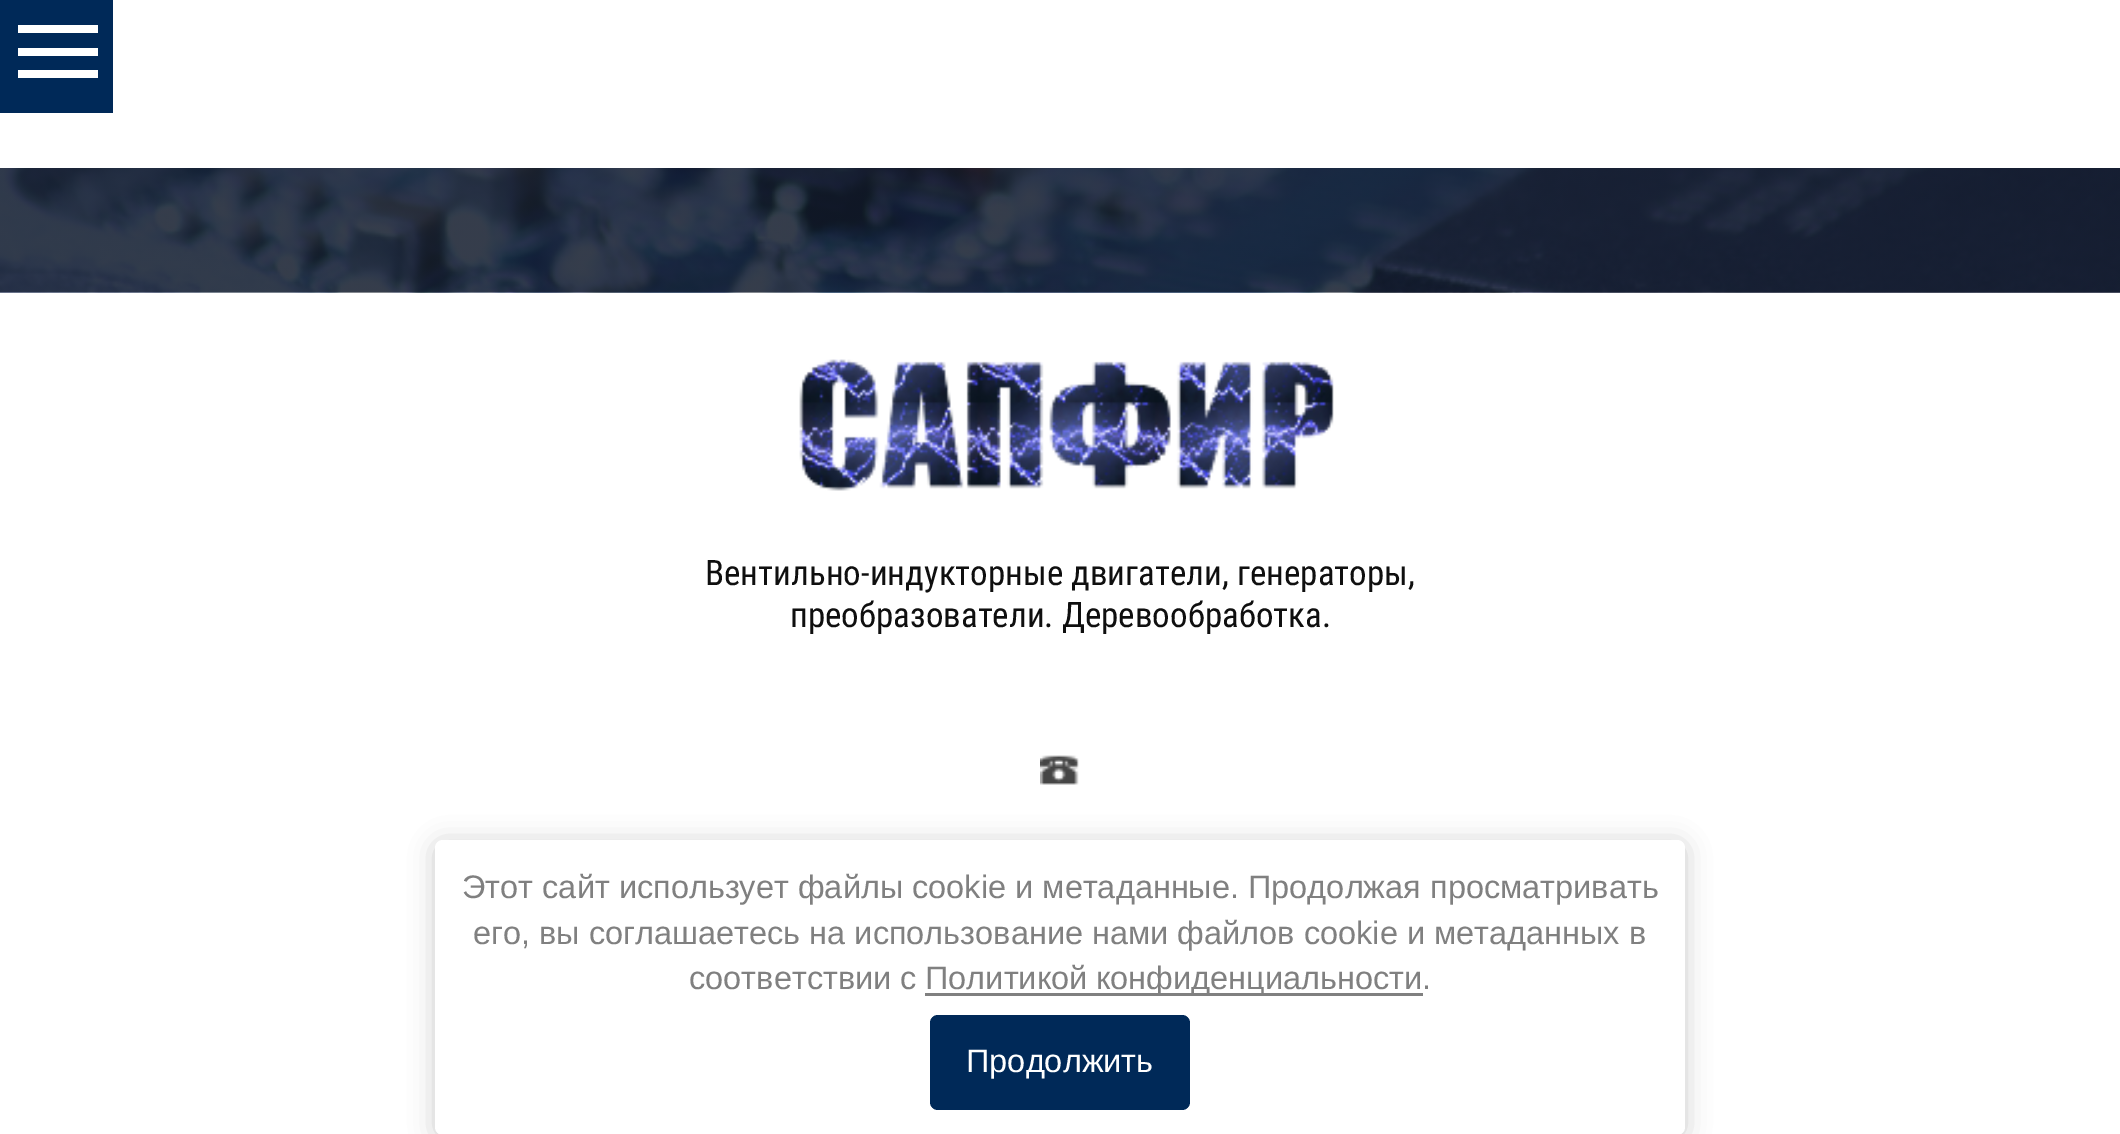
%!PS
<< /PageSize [2120 1134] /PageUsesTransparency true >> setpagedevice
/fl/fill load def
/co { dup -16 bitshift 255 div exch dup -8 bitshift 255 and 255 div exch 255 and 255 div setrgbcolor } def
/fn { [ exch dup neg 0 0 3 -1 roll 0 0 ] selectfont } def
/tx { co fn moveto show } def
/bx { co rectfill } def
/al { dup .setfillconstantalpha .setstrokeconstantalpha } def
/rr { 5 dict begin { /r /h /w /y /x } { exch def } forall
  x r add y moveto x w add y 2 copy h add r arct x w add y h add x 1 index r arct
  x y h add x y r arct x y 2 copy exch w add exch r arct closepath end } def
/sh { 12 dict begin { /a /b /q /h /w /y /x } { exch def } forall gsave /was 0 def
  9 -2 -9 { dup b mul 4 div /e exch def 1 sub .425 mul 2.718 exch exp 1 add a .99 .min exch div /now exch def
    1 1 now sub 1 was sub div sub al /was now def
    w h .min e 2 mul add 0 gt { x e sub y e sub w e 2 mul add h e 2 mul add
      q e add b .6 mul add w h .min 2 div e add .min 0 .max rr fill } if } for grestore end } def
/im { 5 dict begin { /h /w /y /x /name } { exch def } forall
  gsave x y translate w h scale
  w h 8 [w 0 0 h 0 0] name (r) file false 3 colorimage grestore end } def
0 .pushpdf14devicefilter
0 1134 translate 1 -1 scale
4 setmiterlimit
0 0 2120 1134 16#FFFFFF bx
0 0 113 113 16#002958 bx
18 25 80 8 16#FFFFFF bx
18 48 80 8 16#FFFFFF bx
18 70 80 8 16#FFFFFF bx
(media/1.raw) 0 168 2120 125 im
(media/2.raw) 799 359 535 132 im
(media/3.raw) 1040 755 39 30 im
16#000000 co
435 843 1250 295 8 12.5 .2 sh
16#FFFFFF co
435 840 1250 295 8 rr fl
925 993 498 3 16#808080 bx
16#002958 co
930 1015 260 95 8 rr fl
(Вентильно-индукторные двигатели, генераторы,) 705 585 /RobotoCondensed-Regular 35 16#0F0F0F tx
(преобразователи. Деревообработка.) 790 627 /RobotoCondensed-Regular 35 16#0F0F0F tx
(Этот сайт использует файлы cookie и метаданные. Продолжая просматривать) 462 898 /LiberationSans-Regular 32.5 16#808080 tx
(его, вы соглашаетесь на использование нами файлов cookie и метаданных в) 473 944 /LiberationSans-Regular 32.5 16#808080 tx
(соответствии с) 689 989 /LiberationSans-Regular 32.5 16#808080 tx
(Политикой конфиденциальности.) 925 989 /LiberationSans-Regular 32.5 16#808080 tx
(Продолжить) 966 1072 /LiberationSans-Regular 32.5 16#FFFFFF tx
.poppdf14devicefilter showpage
